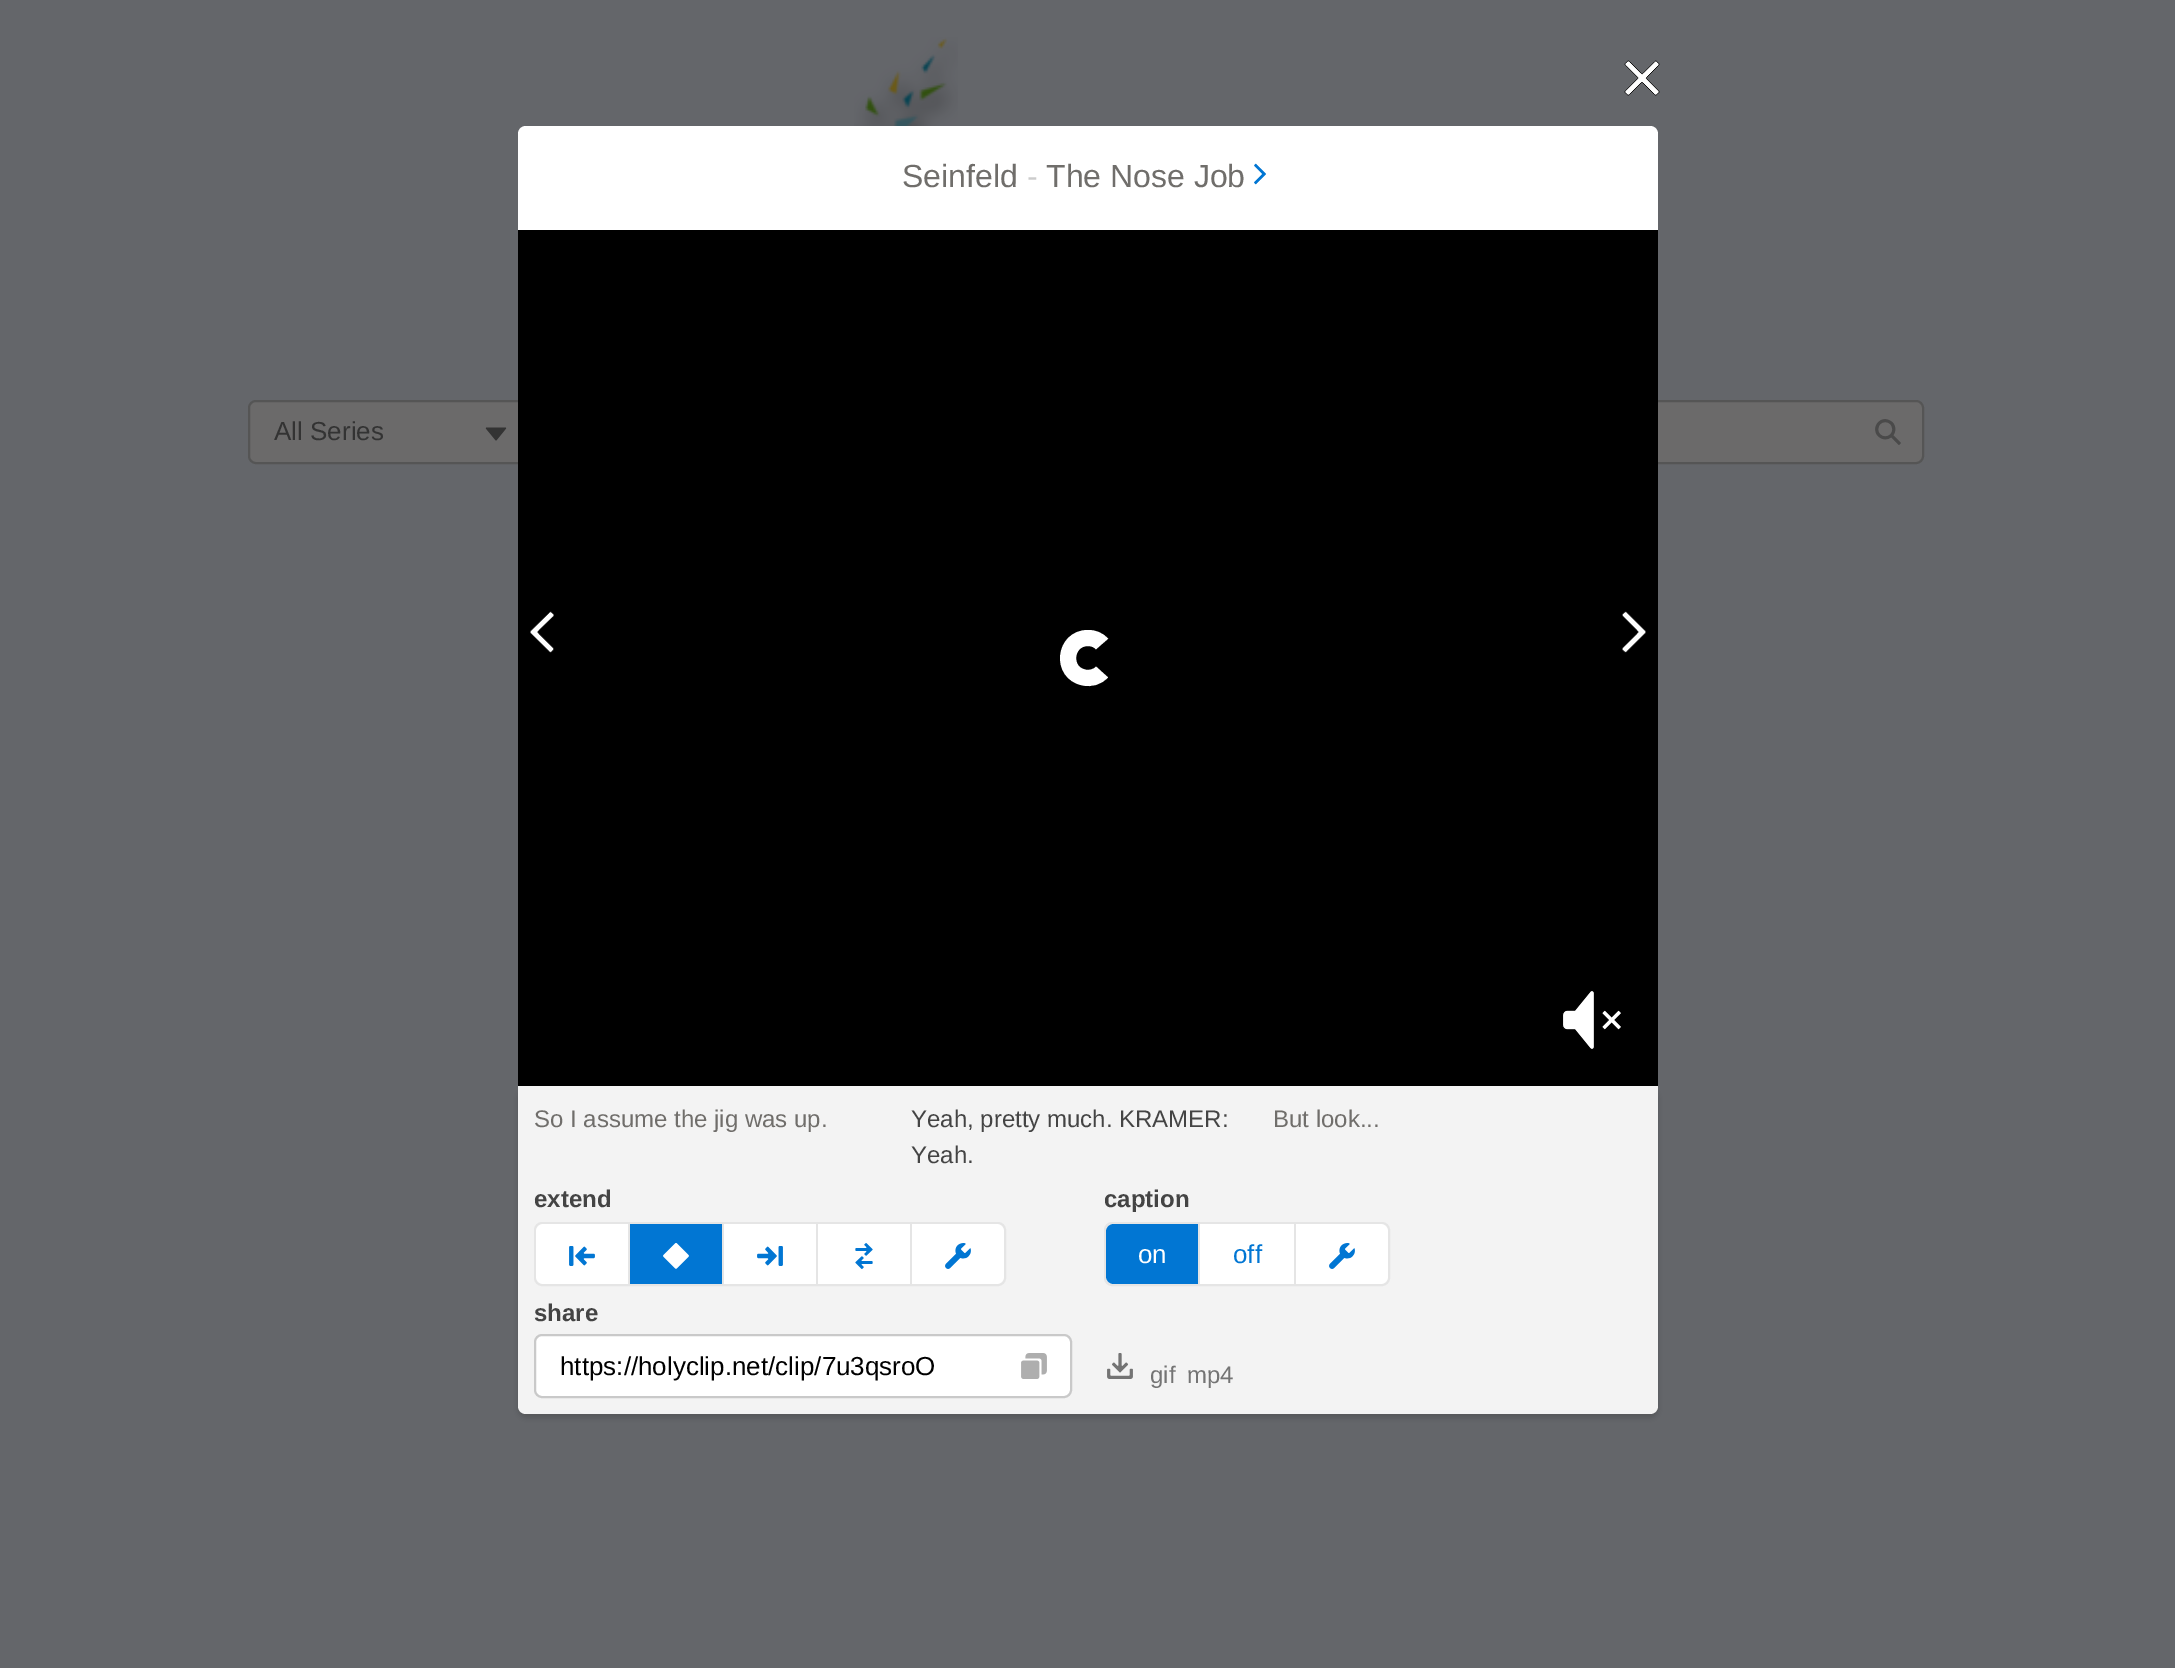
%!PS
<< /PageSize [2175 1668] /PageUsesTransparency true >> setpagedevice
/mt/moveto load def
/li/lineto load def
/ct/curveto load def
/cp/closepath load def
/fl/fill load def
/st/stroke load def
/gs/gsave load def
/gr/grestore load def
/lw/setlinewidth load def
/co { dup -16 bitshift 255 div exch dup -8 bitshift 255 and 255 div exch 255 and 255 div setrgbcolor } def
/fn { [ exch dup neg 0 0 3 -1 roll 0 0 ] selectfont } def
/tx { co fn moveto show } def
/bx { co rectfill } def
/al { dup .setfillconstantalpha .setstrokeconstantalpha } def
/rr { 5 dict begin { /r /h /w /y /x } { exch def } forall
  x r add y moveto x w add y 2 copy h add r arct x w add y h add x 1 index r arct
  x y h add x y r arct x y 2 copy exch w add exch r arct closepath end } def
/sh { 12 dict begin { /a /b /q /h /w /y /x } { exch def } forall gsave /was 0 def
  9 -2 -9 { dup b mul 4 div /e exch def 1 sub .425 mul 2.718 exch exp 1 add a .99 .min exch div /now exch def
    1 1 now sub 1 was sub div sub al /was now def
    w h .min e 2 mul add 0 gt { x e sub y e sub w e 2 mul add h e 2 mul add
      q e add b .6 mul add w h .min 2 div e add .min 0 .max rr fill } if } for grestore end } def
/im { 5 dict begin { /h /w /y /x /name } { exch def } forall
  gsave x y translate w h scale
  w h 8 [w 0 0 h 0 0] name (r) file false 3 colorimage grestore end } def
0 .pushpdf14devicefilter
0 1668 translate 1 -1 scale
4 setmiterlimit
0 0 2175 1668 16#64666A bx
(media/1.raw) 854 37 104 89 im
16#6B6A6A co
533 401 mt 1916 401 li 1920 401 1923 404 1923 408 ct 1923 456 li 1923 460 1920 463 1916 463 ct 533 463 li cp gs fl gr
16#555555 co
2 lw
st
16#6B6A6A co
256 401 mt 531 401 li 531 463 li 256 463 li 252 463 249 460 249 456 ct 249 408 li 249 404 252 401 256 401 ct cp gs fl gr
16#555555 co
st
(media/2.raw) 485 427 22 14 im
(media/3.raw) 1875 419 26 26 im
16#FFFFFF co
526 126 mt 1650 126 li 1654.5 126 1658 129.5 1658 134 ct 1658 230 li 518 230 li 518 134 li 518 129.5 521.5 126 526 126 ct cp fl
(media/4.raw) 1624 60 36 36 im
(media/5.raw) 1254 163 12 22 im
16#000000 co
518 1090 1140 328 8 3 .16 sh
518 230 1140 856 16#000000 bx
(media/6.raw) 530 611 24 42 im
(media/7.raw) 1622 611 24 42 im
16#FFFFFF co
16 lw
1102 672 mt 1097.5 677 1090.5 679 1084 677.5 ct 1060.5 673 1064 638 1088 638 ct 1093.5 638 1098.5 640 1102 644 ct st
(media/8.raw) 1562 991 59 58 im
16#F3F3F3 co
518 1086 mt 1658 1086 li 1658 1406 li 1658 1410.5 1654.5 1414 1650 1414 ct 526 1414 li 521.5 1414 518 1410.5 518 1406 ct cp fl
16#E5E5E5 co
2 lw
535 1223 470 62 7 rr st
16#FFFFFF co
544 1224 mt 628 1224 li 628 1284 li 544 1284 li 539.5 1284 536 1280.5 536 1276 ct 536 1232 li 536 1227.5 539.5 1224 544 1224 ct cp fl
(media/9.raw) 569 1246 26 20 im
628 1224 2 60 16#E5E5E5 bx
630 1224 92 60 16#0176D3 bx
(media/10.raw) 663 1243 26 26 im
722 1224 2 60 16#E5E5E5 bx
724 1224 92 60 16#FFFFFF bx
(media/11.raw) 757 1246 26 20 im
816 1224 2 60 16#E5E5E5 bx
818 1224 92 60 16#FFFFFF bx
(media/12.raw) 855 1243 18 26 im
910 1224 2 60 16#E5E5E5 bx
16#FFFFFF co
912 1224 mt 996 1224 li 1000.5 1224 1004 1227.5 1004 1232 ct 1004 1276 li 1004 1280.5 1000.5 1284 996 1284 ct 912 1284 li cp fl
(media/13.raw) 945 1243 26 26 im
16#E5E5E5 co
1105 1223 284 62 7 rr st
16#0176D3 co
1114 1224 mt 1198 1224 li 1198 1284 li 1114 1284 li 1109.5 1284 1106 1280.5 1106 1276 ct 1106 1232 li 1106 1227.5 1109.5 1224 1114 1224 ct cp fl
1198 1224 2 60 16#E5E5E5 bx
1200 1224 94 60 16#FFFFFF bx
1294 1224 2 60 16#E5E5E5 bx
16#FFFFFF co
1296 1224 mt 1380 1224 li 1384.5 1224 1388 1227.5 1388 1232 ct 1388 1276 li 1388 1280.5 1384.5 1284 1380 1284 ct 1296 1284 li cp fl
(media/13.raw) 1329 1243 26 26 im
535 1335 536 62 7 rr gs fl gr
16#C9C9C9 co
st
(media/14.raw) 1021 1353 26 26 im
(media/15.raw) 1107 1353 26 26 im
(All Series) 274 440 /LiberationSans-Regular 26 16#333333 tx
(Seinfeld) 902 187 /LiberationSans-Regular 32 16#706E6B tx
(-) 1027 187 /LiberationSans-Regular 32 16#CCCCCC tx
(The Nose Job) 1046 187 /LiberationSans-Regular 32 16#706E6B tx
(So I assume the jig was up.) 534 1127 /LiberationSans-Regular 24 16#706E6B tx
(Yeah, pretty much. KRAMER:) 911 1127 /LiberationSans-Regular 24 16#444444 tx
(Yeah.) 911 1163 /LiberationSans-Regular 24 16#444444 tx
(But look...) 1273 1127 /LiberationSans-Regular 24 16#706E6B tx
(extend) 534 1207 /LiberationSans-Bold 24 16#444444 tx
(caption) 1104 1207 /LiberationSans-Bold 24 16#444444 tx
(on) 1138 1263 /LiberationSans-Regular 26 16#FFFFFF tx
(off) 1233 1263 /LiberationSans-Regular 26 16#0176D3 tx
(share) 534 1321 /LiberationSans-Bold 24 16#444444 tx
(https://holyclip.net/clip/7u3qsroO) 560 1375 /LiberationSans-Regular 26 16#000000 tx
(gif) 1150 1383 /LiberationSans-Regular 24 16#747474 tx
(mp4) 1187 1383 /LiberationSans-Regular 24 16#747474 tx
.poppdf14devicefilter showpage
